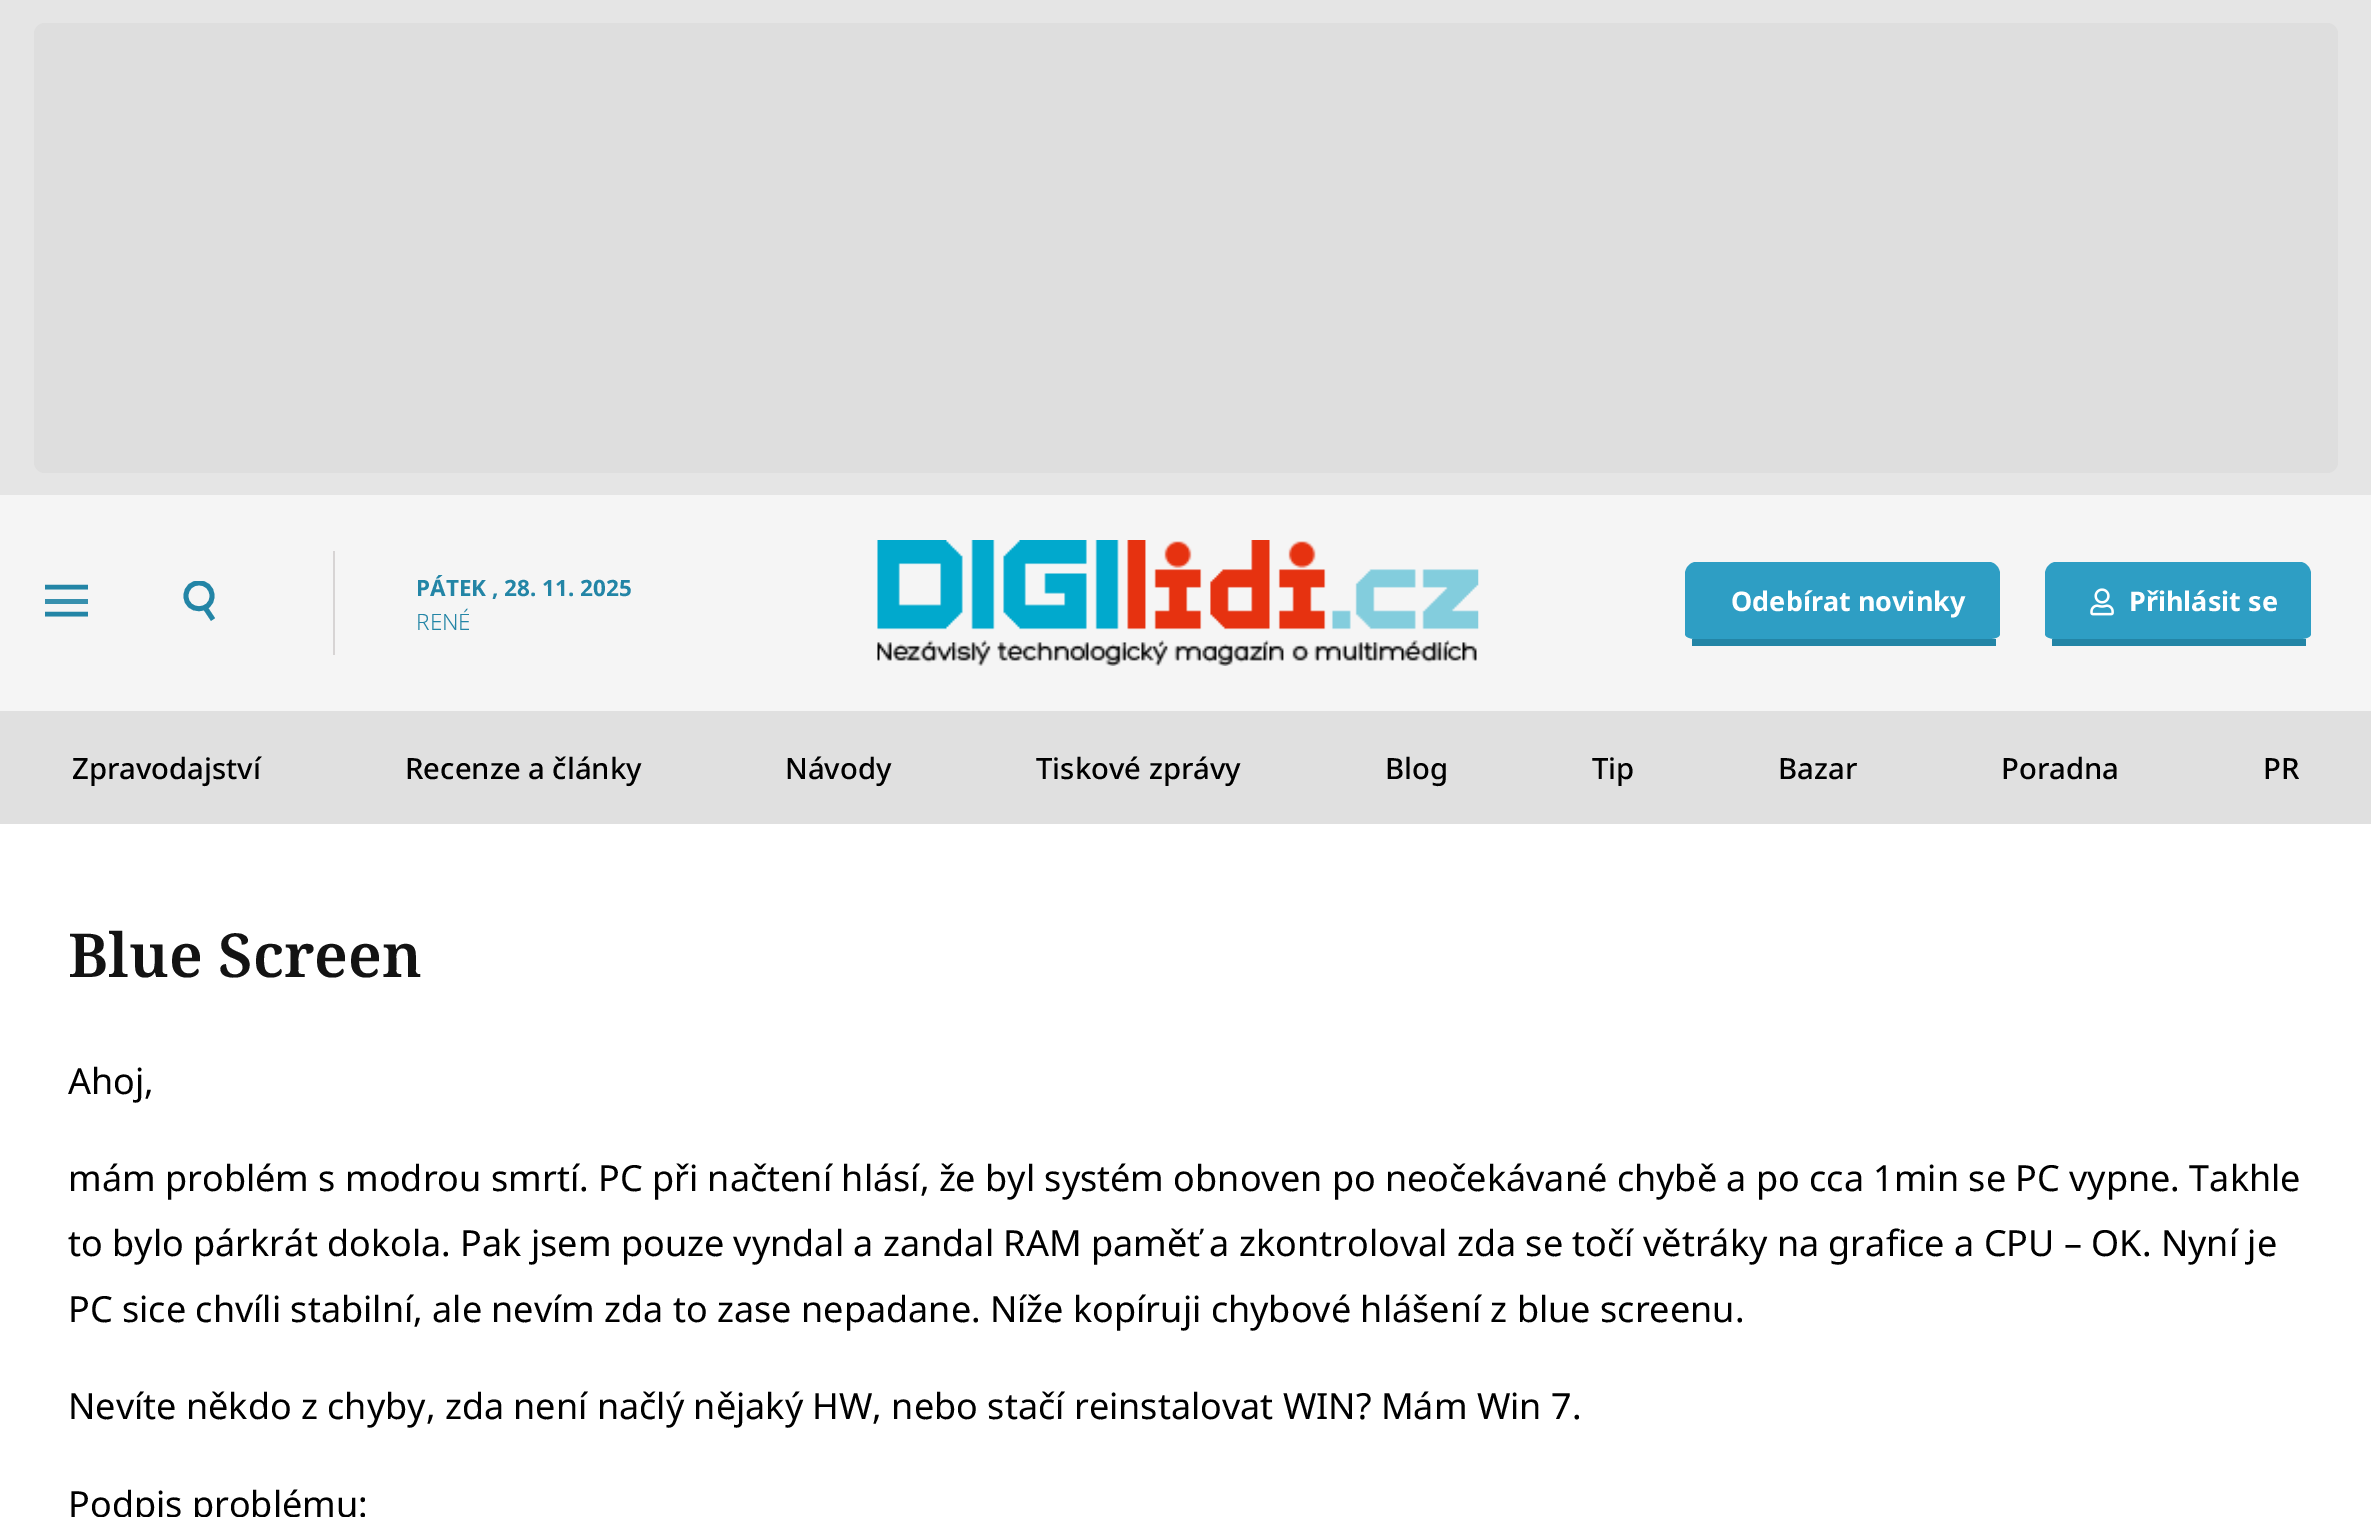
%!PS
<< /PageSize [2371 1517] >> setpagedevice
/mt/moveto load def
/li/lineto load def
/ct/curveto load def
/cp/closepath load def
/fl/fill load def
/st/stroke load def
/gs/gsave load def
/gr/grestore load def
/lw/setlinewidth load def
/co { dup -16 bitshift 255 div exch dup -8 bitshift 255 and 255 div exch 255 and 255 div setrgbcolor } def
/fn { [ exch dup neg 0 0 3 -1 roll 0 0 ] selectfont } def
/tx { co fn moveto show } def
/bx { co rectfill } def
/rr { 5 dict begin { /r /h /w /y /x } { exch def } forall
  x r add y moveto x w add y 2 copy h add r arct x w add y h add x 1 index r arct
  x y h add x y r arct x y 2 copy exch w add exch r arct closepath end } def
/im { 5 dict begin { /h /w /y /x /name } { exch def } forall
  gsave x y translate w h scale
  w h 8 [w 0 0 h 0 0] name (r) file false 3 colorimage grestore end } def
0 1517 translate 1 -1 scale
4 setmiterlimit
0 0 2371 1517 16#FFFFFF bx
0 0 2371 495 16#E5E5E5 bx
16#DEDEDE co
34 23 2304 450 11 rr fl
0 495 2371 216 16#F5F5F5 bx
16#2385A6 co
4.5 lw
45 587 mt 88 587 li st
45 599 43 5 16#3890AE bx
16#2385A6 co
45 614 mt 88 614 li st
gs
180 581 41 40 rectclip
4.8 lw
212 596 mt 212 613 186 613 186 596 ct 186 578.5 212 578.5 212 596 ct cp st
gr
4.8 lw
206 609 mt 213 619.5 li st
333 551 2 104 16#D7D4D4 bx
(media/1.raw) 877 540 602 126 im
16#2E9EC4 co
1696 562 mt 1989 562 li 1995 562 2000 568 2000 574 ct 2000 634 li 2000 637 1995 639 1989 639 ct 1696 639 li 1690 639 1685 637 1685 634 ct 1685 574 li 1685 568 1690 562 1696 562 ct cp fl
1692 639 304 7 16#2385A6 bx
16#2E9EC4 co
2056 562 mt 2300 562 li 2306 562 2311 568 2311 574 ct 2311 634 li 2311 637 2306 639 2300 639 ct 2056 639 li 2050 639 2045 637 2045 634 ct 2045 574 li 2045 568 2050 562 2056 562 ct cp fl
2052 639 254 7 16#2385A6 bx
(media/2.raw) 2090 588 24 28 im
0 711 2371 113 16#E0E0E0 bx
(PÁTEK , 28. 11. 2025) 416 596 /NotoSans-Bold 22.5 16#2385A6 tx
(RENÉ) 416 630 /NotoSans-Light 22.5 16#2385A6 tx
(Odebírat novinky) 1731 611 /NotoSans-Bold 27 16#FFFFFF tx
(Přihlásit se) 2129 611 /NotoSans-Bold 27 16#FFFFFF tx
(Zpravodajství) 72 779 /NotoSans-Medium 29.25 16#000000 tx
(Recenze a články) 405 779 /NotoSans-Medium 29.25 16#000000 tx
(Návody) 785 779 /NotoSans-Medium 29.25 16#000000 tx
(Tiskové zprávy) 1036 779 /NotoSans-Medium 29.25 16#000000 tx
(Blog) 1385 779 /NotoSans-Medium 29.25 16#000000 tx
(Tip) 1592 779 /NotoSans-Medium 29.25 16#000000 tx
(Bazar) 1778 779 /NotoSans-Medium 29.25 16#000000 tx
(Poradna) 2001 779 /NotoSans-Medium 29.25 16#000000 tx
(PR) 2263 779 /NotoSans-Medium 29.25 16#000000 tx
(Blue Screen) 68 977 /NotoSerif-SemiBold 60.75 16#131313 tx
(Ahoj,) 68 1094 /NotoSans-Regular 36 16#000000 tx
(mám problém s modrou smrtí. PC při načtení hlásí, že byl systém obnoven po neočekávané chybě a po cca 1min se PC vypne. Takhle) 68 1191 /NotoSans-Regular 36 16#000000 tx
(to bylo párkrát dokola. Pak jsem pouze vyndal a zandal RAM paměť a zkontroloval zda se točí větráky na grafice a CPU – OK. Nyní je) 68 1256 /NotoSans-Regular 36 16#000000 tx
(PC sice chvíli stabilní, ale nevím zda to zase nepadane. Níže kopíruji chybové hlášení z blue screenu.) 68 1322 /NotoSans-Regular 36 16#000000 tx
(Nevíte někdo z chyby, zda není načlý nějaký HW, nebo stačí reinstalovat WIN? Mám Win 7.) 68 1419 /NotoSans-Regular 36 16#000000 tx
(Podpis problému:) 68 1517 /NotoSans-Regular 36 16#000000 tx
showpage
